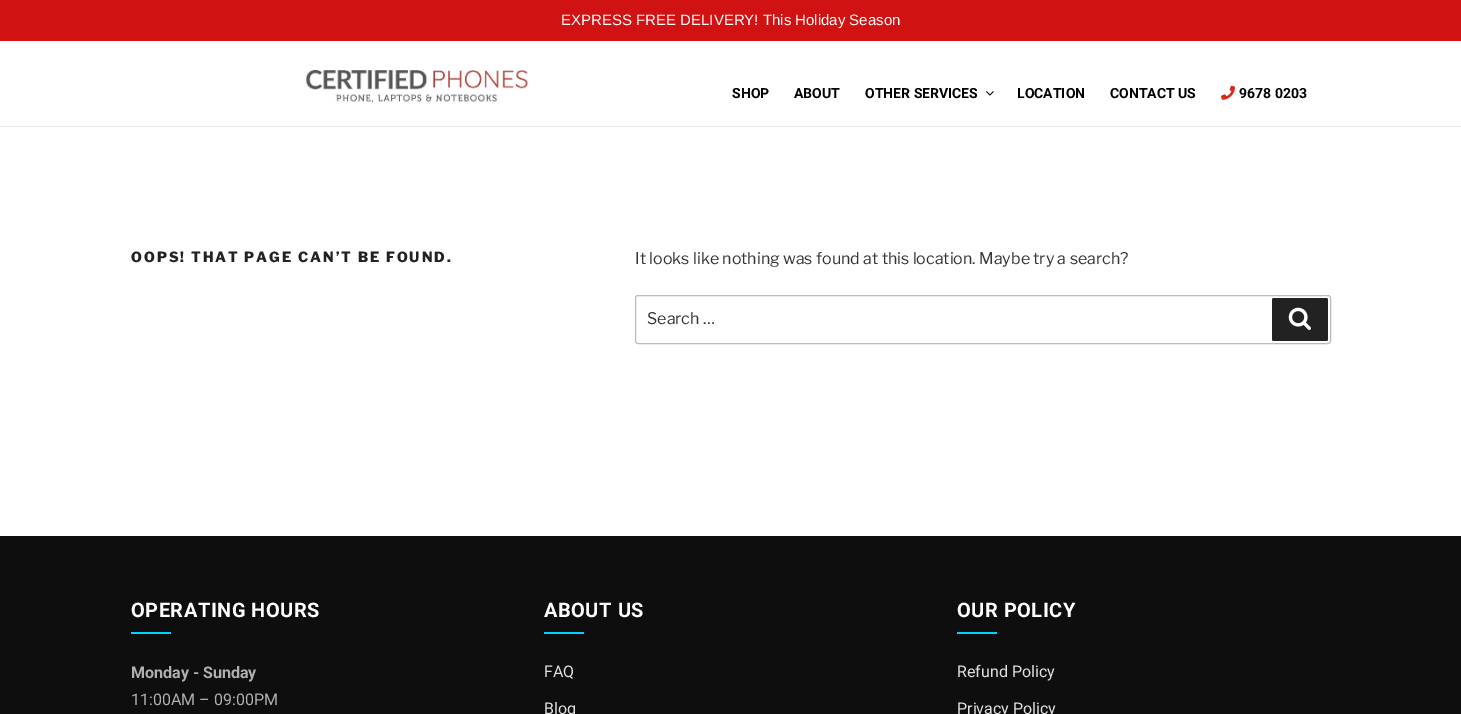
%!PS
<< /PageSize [1461 714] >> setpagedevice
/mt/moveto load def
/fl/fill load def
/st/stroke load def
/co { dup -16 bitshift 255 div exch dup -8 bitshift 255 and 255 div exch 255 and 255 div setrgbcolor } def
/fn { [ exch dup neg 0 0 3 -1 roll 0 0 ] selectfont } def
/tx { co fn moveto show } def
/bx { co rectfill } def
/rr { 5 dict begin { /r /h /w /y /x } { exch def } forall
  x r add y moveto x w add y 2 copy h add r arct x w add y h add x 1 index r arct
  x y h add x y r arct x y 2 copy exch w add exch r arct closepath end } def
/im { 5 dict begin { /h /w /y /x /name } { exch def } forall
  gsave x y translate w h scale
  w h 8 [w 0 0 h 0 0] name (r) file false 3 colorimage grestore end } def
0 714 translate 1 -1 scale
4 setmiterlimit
0 0 1461 714 16#FFFFFF bx
0 0 1461 41 16#D11212 bx
0 126 1461 1 16#E6E6E6 bx
(media/1.raw) 305 69 224 34 im
(media/2.raw) 986 91 8 5 im
(media/3.raw) 1221 85 14 15 im
16#BBBBBB co
635.5 295.5 695 48 2.5 rr st
16#222222 co
1272 298 56 43 2 rr fl
(media/4.raw) 1288 307 23 23 im
0 536 1461 178 16#0E0E0E bx
131 632 40 2 16#00D2FF bx
544 632 40 2 16#00D2FF bx
957 632 40 2 16#00D2FF bx
(EXPRESS FREE DELIVERY! This Holiday Season) 561 25 /LiberationSans-Regular 15 16#FFFFFF tx
(SHOP) 732 98 /Roboto-Bold 14 16#000000 tx
(ABOUT) 794 98 /Roboto-Bold 14 16#000000 tx
(OTHER SERVICES) 865 98 /Roboto-Bold 14 16#000000 tx
(LOCATION) 1017 98 /Roboto-Bold 14 16#000000 tx
(CONTACT US) 1110 98 /Roboto-Bold 14 16#000000 tx
(9678 0203) 1239 98 /Roboto-Bold 14 16#000000 tx
/LibreFranklin-Thin 14 fn
16#222222 co
131 262 mt 1.95 0 (OOPS! THAT PAGE CAN’T BE FOUND.) ashow
(It looks like nothing was found at this location. Maybe try a search?) 635 264 /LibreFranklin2-Thin 16 16#333333 tx
(Search …) 647 324 /LibreFranklin2-Thin 16 16#333333 tx
/Roboto-Bold 20 fn
16#FFFFFF co
131 617 mt .5 0 (OPERATING HOURS) ashow
(Monday - Sunday) 131 678 /Roboto-Bold 16 16#B0B0B0 tx
(11:00AM – 09:00PM) 131 705 /Roboto-Regular 16 16#B0B0B0 tx
/Roboto-Bold 20 fn
16#FFFFFF co
544 617 mt .5 0 (ABOUT US) ashow
(FAQ) 544 677 /Roboto-Regular 16 16#E0E0E0 tx
(Blog) 544 714 /Roboto-Regular 16 16#E0E0E0 tx
/Roboto-Bold 20 fn
16#FFFFFF co
957 617 mt .5 0 (OUR POLICY) ashow
(Refund Policy) 957 677 /Roboto-Regular 16 16#E0E0E0 tx
(Privacy Policy) 957 714 /Roboto-Regular 16 16#E0E0E0 tx
showpage
